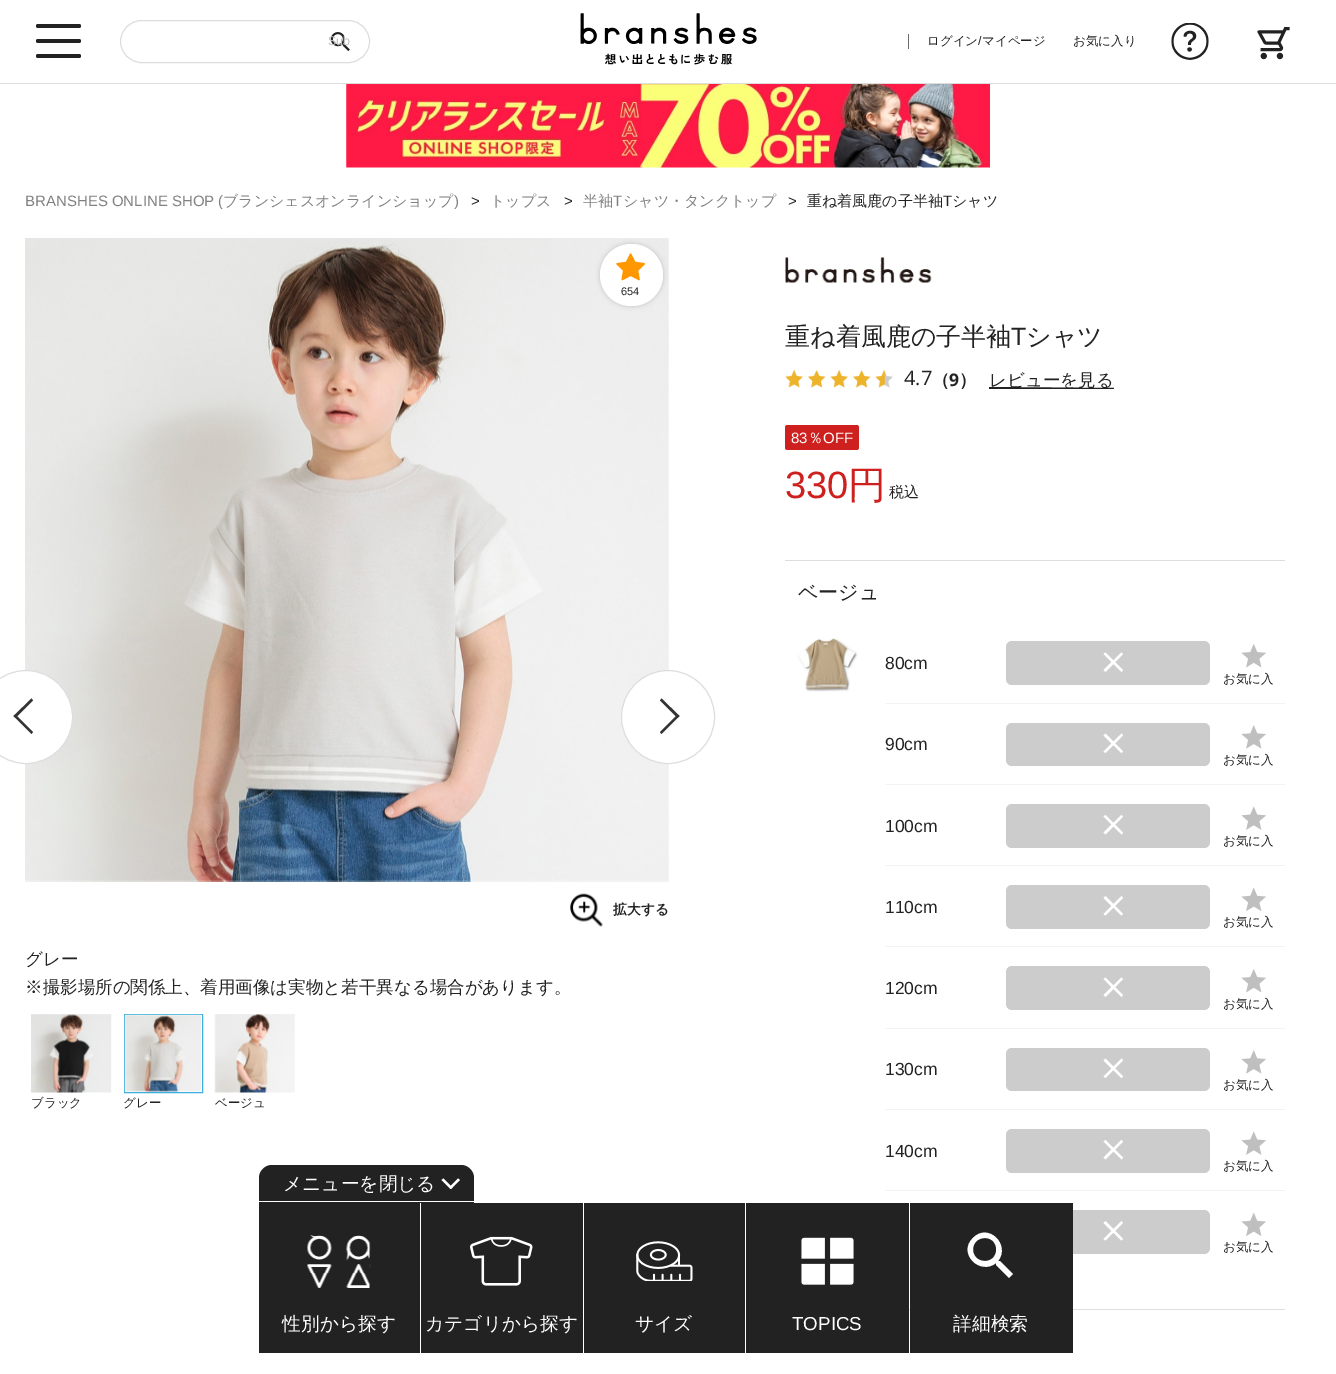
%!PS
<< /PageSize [1336 1374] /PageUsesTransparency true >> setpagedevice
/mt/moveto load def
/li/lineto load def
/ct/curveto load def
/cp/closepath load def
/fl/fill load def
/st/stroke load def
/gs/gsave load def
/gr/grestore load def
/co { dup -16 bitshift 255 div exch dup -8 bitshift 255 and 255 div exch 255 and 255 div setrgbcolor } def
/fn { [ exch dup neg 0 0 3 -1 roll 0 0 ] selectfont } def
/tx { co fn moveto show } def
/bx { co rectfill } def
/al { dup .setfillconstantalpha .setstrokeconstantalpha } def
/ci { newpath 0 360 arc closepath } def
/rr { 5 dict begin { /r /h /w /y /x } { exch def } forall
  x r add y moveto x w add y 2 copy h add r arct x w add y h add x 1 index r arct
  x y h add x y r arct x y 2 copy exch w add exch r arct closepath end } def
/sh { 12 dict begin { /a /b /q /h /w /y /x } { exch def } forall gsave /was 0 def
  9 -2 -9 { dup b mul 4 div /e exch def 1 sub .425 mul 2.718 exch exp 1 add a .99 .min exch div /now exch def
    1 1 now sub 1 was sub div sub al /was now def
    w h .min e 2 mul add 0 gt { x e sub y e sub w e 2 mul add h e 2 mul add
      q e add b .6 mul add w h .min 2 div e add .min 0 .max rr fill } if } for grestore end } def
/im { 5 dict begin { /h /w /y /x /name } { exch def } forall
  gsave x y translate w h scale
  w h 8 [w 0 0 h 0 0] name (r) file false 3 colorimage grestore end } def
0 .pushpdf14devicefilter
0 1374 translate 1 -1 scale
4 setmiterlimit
0 0 1336 1374 16#FFFFFF bx
0 83 1336 1 16#DDDDDD bx
16#222222 co
36 24 45 4 2 rr fl
36 39 45 4 2 rr fl
36 54 45 4 2 rr fl
16#DDDDDD co
120.5 20.5 249 42 21 rr st
(media/1.raw) 330 32 20 20 im
(media/2.raw) 580 13 177 52 im
908 34 1 15 16#6B6B6B bx
(media/3.raw) 1171 23 38 37 im
(media/4.raw) 1257 27 33 33 im
(media/5.raw) 346 84 644 84 im
(media/7.raw) 25 238 644 644 im
16#3C3C3C co
600 244 63 62 31 2.5 .25 sh
16#FFFFFF co
600 244 63 62 31 rr fl
(media/6.raw) 616 253 29 28 im
26 717 46.5 ci gs fl gr
16#DDDDDD co
st
16#333333 co
15.5 714.5 mt 33 732 li 31.5 734 li 13.5 716 li cp fl
31.5 698.5 mt 33 700.5 li 15.5 718 li 13.5 716 li cp fl
16#FFFFFF co
668 717 46.5 ci gs fl gr
16#DDDDDD co
st
16#333333 co
677.5 718 mt 660 700.5 li 661.5 698.5 li 679.5 716 li cp fl
661.5 734 mt 660 732 li 677.5 714.5 li 679.5 716 li cp fl
(media/8.raw) 570 893 33 34 im
(media/9.raw) 31 1014 81 79 im
16#3BAFDF co
124.5 1014.5 78 78 rectstroke
(media/10.raw) 124 1014 78 78 im
(media/11.raw) 214 1014 81 79 im
(media/12.raw) 785 257 147 26 im
(media/13.raw) 785 369 108 19 im
16#222222 co
989 387 mt 1114 388 li 1114 389 li 989 389 li cp fl
16#CD201F co
785 425 74 25 2.5 rr fl
785 560 500 1 16#DDDDDD bx
(media/14.raw) 797 638 61 54 im
885 703 400 1 16#F3F3F3 bx
16#CCCCCC co
1006 641 204 44 6 rr fl
16#FFFFFF co
1105.5 652.5 mt 1123 670 li 1121.5 672 li 1103.5 654 li cp fl
1103.5 670 mt 1121.5 652.5 li 1123 654 li 1105.5 672 li cp fl
(media/15.raw) 1241 644 25 24 im
885 784 400 1 16#F3F3F3 bx
16#CCCCCC co
1006 723 204 43 6 rr fl
16#FFFFFF co
1105.5 733.5 mt 1123 751.5 li 1121.5 753 li 1103.5 735.5 li cp fl
1103.5 751.5 mt 1121.5 733.5 li 1123 735.5 li 1105.5 753 li cp fl
(media/16.raw) 1241 725 25 24 im
885 865 400 1 16#F3F3F3 bx
16#CCCCCC co
1006 804 204 44 6 rr fl
16#FFFFFF co
1105.5 815 mt 1123 832.5 li 1121.5 834.5 li 1103.5 816.5 li cp fl
1103.5 832.5 mt 1121.5 815 li 1123 816.5 li 1105.5 834.5 li cp fl
(media/17.raw) 1241 806 25 24 im
885 946 400 1 16#F3F3F3 bx
16#CCCCCC co
1006 885 204 44 6 rr fl
16#FFFFFF co
1105.5 896 mt 1123 914 li 1121.5 915.5 li 1103.5 898 li cp fl
1103.5 914 mt 1121.5 896 li 1123 898 li 1105.5 915.5 li cp fl
(media/18.raw) 1241 887 25 24 im
885 1028 400 1 16#F3F3F3 bx
16#CCCCCC co
1006 966 204 44 6 rr fl
16#FFFFFF co
1105.5 977.5 mt 1123 995 li 1121.5 997 li 1103.5 979 li cp fl
1103.5 995 mt 1121.5 977.5 li 1123 979 li 1105.5 997 li cp fl
(media/15.raw) 1241 969 25 24 im
885 1109 400 1 16#F3F3F3 bx
16#CCCCCC co
1006 1048 204 43 6 rr fl
16#FFFFFF co
1105.5 1058.5 mt 1123 1076.5 li 1121.5 1078 li 1103.5 1060.5 li cp fl
1103.5 1076.5 mt 1121.5 1058.5 li 1123 1060.5 li 1105.5 1078 li cp fl
(media/16.raw) 1241 1050 25 24 im
885 1190 400 1 16#F3F3F3 bx
16#CCCCCC co
1006 1129 204 44 6 rr fl
16#FFFFFF co
1105.5 1140 mt 1123 1157.5 li 1121.5 1159.5 li 1103.5 1141.5 li cp fl
1103.5 1157.5 mt 1121.5 1140 li 1123 1141.5 li 1105.5 1159.5 li cp fl
(media/17.raw) 1241 1131 25 24 im
16#CCCCCC co
1006 1210 204 44 6 rr fl
16#FFFFFF co
1105.5 1221 mt 1123 1239 li 1121.5 1240.5 li 1103.5 1223 li cp fl
1103.5 1239 mt 1121.5 1221 li 1123 1223 li 1105.5 1240.5 li cp fl
(media/18.raw) 1241 1212 25 24 im
909 1309 376 1 16#DDDDDD bx
16#222222 co
272 1165 mt 461 1165 li 468 1165 474 1171 474 1178 ct 474 1203 li 259 1203 li 259 1178 li 259 1171 265 1165 272 1165 ct cp fl
259 1201 215 1 16#FFFFFF bx
449 1187.5 mt 458 1178.5 li 460 1180 li 451 1189 li cp fl
443.5 1178.5 mt 452.5 1187.5 li 450.5 1189 li 441.5 1180 li cp fl
259 1203 161 150 16#222222 bx
(media/19.raw) 307 1235 64 53 im
421 1203 162 150 16#222222 bx
(media/20.raw) 470 1236 63 50 im
584 1203 161 150 16#222222 bx
(media/21.raw) 636 1241 57 40 im
746 1203 163 150 16#222222 bx
(media/22.raw) 801 1237 53 48 im
910 1203 163 150 16#222222 bx
16#FFFFFF co
1000 1261 mt 998 1261 li 1011 1245 988 1222 973 1238 ct 957 1253 980 1276 996 1263 ct 996 1265 li 1009 1278 li 1013 1274 li cp 985 1261 mt 969 1261 969 1238 985 1238 ct 1000 1238 1000 1261 985 1261 ct cp fl
(Sub) 328 45 /LiberationSans-Regular 12.5 16#C1C1C1 tx
(ログイン マイページ) 927 45 /WenQuanYiZenHei-Medium 12.5 16#222222 tx
(/) 978 45 /LiberationSans-Regular 12.5 16#222222 tx
(お気に入り) 1073 45 /WenQuanYiZenHei-Medium 12.5 16#222222 tx
(BRANSHES ONLINE SHOP \() 25 206 /LiberationSans-Regular 15 16#808080 tx
(ブランシェスオンラインショップ) 223 206 /WenQuanYiZenHei-Medium 15 16#808080 tx
(\)) 454 206 /LiberationSans-Regular 15 16#808080 tx
(>) 471 206 /LiberationSans-Regular 15 16#222222 tx
(トップス) 490 206 /WenQuanYiZenHei-Medium 15 16#808080 tx
(>) 564 206 /LiberationSans-Regular 15 16#222222 tx
(半袖) 583 206 /WenQuanYiZenHei-Medium 15 16#808080 tx
(T) 613 206 /LiberationSans-Regular 15 16#808080 tx
(シャツ・タンクトップ) 623 206 /WenQuanYiZenHei-Medium 15 16#808080 tx
(>) 788 206 /LiberationSans-Regular 15 16#222222 tx
(重ね着風鹿の子半袖) 807 206 /WenQuanYiZenHei-Medium 15 16#222222 tx
(T) 943 206 /LiberationSans-Regular 15 16#222222 tx
(シャツ) 952 206 /WenQuanYiZenHei-Medium 15 16#222222 tx
(654) 621 295 /LiberationSans-Regular 11 16#222222 tx
(拡大する) 613 914 /WenQuanYiZenHei-Bold 13.75 16#222222 tx
(グレー) 25 965 /WenQuanYiZenHei-Medium 17.5 16#222222 tx
(※撮影場所の関係上、着用画像は実物と若干異なる場合があります。) 25 993 /WenQuanYiZenHei-Medium 17.5 16#222222 tx
(ブラック) 31 1107 /WenQuanYiZenHei-Medium 12.5 16#222222 tx
(グレー) 123 1107 /WenQuanYiZenHei-Medium 12.5 16#222222 tx
(ベージュ) 215 1107 /WenQuanYiZenHei-Medium 12.5 16#222222 tx
/WenQuanYiZenHei-Medium 25 fn
gs 785 345 translate .1 rotate 0 0 mt (重ね着風鹿の子半袖) show gr
/LiberationSans-Regular 25 fn
gs 1011 345 translate .1 rotate 0 0 mt (T) show gr
/WenQuanYiZenHei-Medium 25 fn
gs 1026 345 translate .1 rotate 0 0 mt (シャツ) show gr
/OpenSans-Regular 20 fn
gs 904 385 translate .1 rotate 0 0 mt (4.7) show gr
/WenQuanYiZenHei-Bold 17.5 fn
gs 932 386 translate .1 rotate 0 0 mt (（) show gr
/OpenSans-Bold 17.5 fn
gs 949 386 translate .1 rotate 0 0 mt (9) show gr
/WenQuanYiZenHei-Bold 17.5 fn
gs 959 386 translate .1 rotate 0 0 mt (）) show gr
/WenQuanYiZenHei-Medium 17.5 fn
gs 989 386 translate .1 rotate 0 0 mt (レビューを見る) show gr
(83) 791 443 /LiberationSans-Regular 15 16#FFFFFF tx
(％) 808 443 /WenQuanYiZenHei-Medium 15 16#FFFFFF tx
(OFF) 823 443 /LiberationSans-Regular 15 16#FFFFFF tx
(330) 785 498 /LiberationSans-Regular 38 16#CD201F tx
(円) 848 498 /WenQuanYiZenHei-Medium 38 16#CD201F tx
(税込) 889 497 /WenQuanYiZenHei-Medium 15 16#222222 tx
(ベージュ) 798 599 /WenQuanYiZenHei-Medium 20 16#222222 tx
(80cm) 885 669 /LiberationSans-Regular 17.5 16#222222 tx
gs
1223 641 62 44 6 rr clip newpath
(お気に入) 1223 683 /WenQuanYiZenHei-Medium 12.5 16#222222 tx
gr
(90cm) 885 750 /LiberationSans-Regular 17.5 16#222222 tx
gs
1223 723 62 43 6 rr clip newpath
(お気に入) 1223 764 /WenQuanYiZenHei-Medium 12.5 16#222222 tx
gr
(100cm) 885 832 /LiberationSans-Regular 17.5 16#222222 tx
gs
1223 804 62 44 6 rr clip newpath
(お気に入) 1223 845 /WenQuanYiZenHei-Medium 12.5 16#222222 tx
gr
(110cm) 885 913 /LiberationSans-Regular 17.5 16#222222 tx
gs
1223 885 62 44 6 rr clip newpath
(お気に入) 1223 926 /WenQuanYiZenHei-Medium 12.5 16#222222 tx
gr
(120cm) 885 994 /LiberationSans-Regular 17.5 16#222222 tx
gs
1223 966 62 44 6 rr clip newpath
(お気に入) 1223 1008 /WenQuanYiZenHei-Medium 12.5 16#222222 tx
gr
(130cm) 885 1075 /LiberationSans-Regular 17.5 16#222222 tx
gs
1223 1048 62 43 6 rr clip newpath
(お気に入) 1223 1089 /WenQuanYiZenHei-Medium 12.5 16#222222 tx
gr
(140cm) 885 1157 /LiberationSans-Regular 17.5 16#222222 tx
gs
1223 1129 62 44 6 rr clip newpath
(お気に入) 1223 1170 /WenQuanYiZenHei-Medium 12.5 16#222222 tx
gr
gs
1223 1210 62 44 6 rr clip newpath
(お気に入) 1223 1251 /WenQuanYiZenHei-Medium 12.5 16#222222 tx
gr
(メニューを閉じる) 283 1190 /WenQuanYiZenHei-Medium 18.75 16#FFFFFF tx
(性別から探す) 282 1330 /WenQuanYiZenHei-Medium 18.75 16#FFFFFF tx
(カテゴリから探す) 425 1330 /WenQuanYiZenHei-Medium 18.75 16#FFFFFF tx
(サイズ) 635 1330 /WenQuanYiZenHei-Medium 18.75 16#FFFFFF tx
(TOPICS) 792 1330 /LiberationSans-Regular 18.75 16#FFFFFF tx
(詳細検索) 953 1330 /WenQuanYiZenHei-Medium 18.75 16#FFFFFF tx
.poppdf14devicefilter showpage
